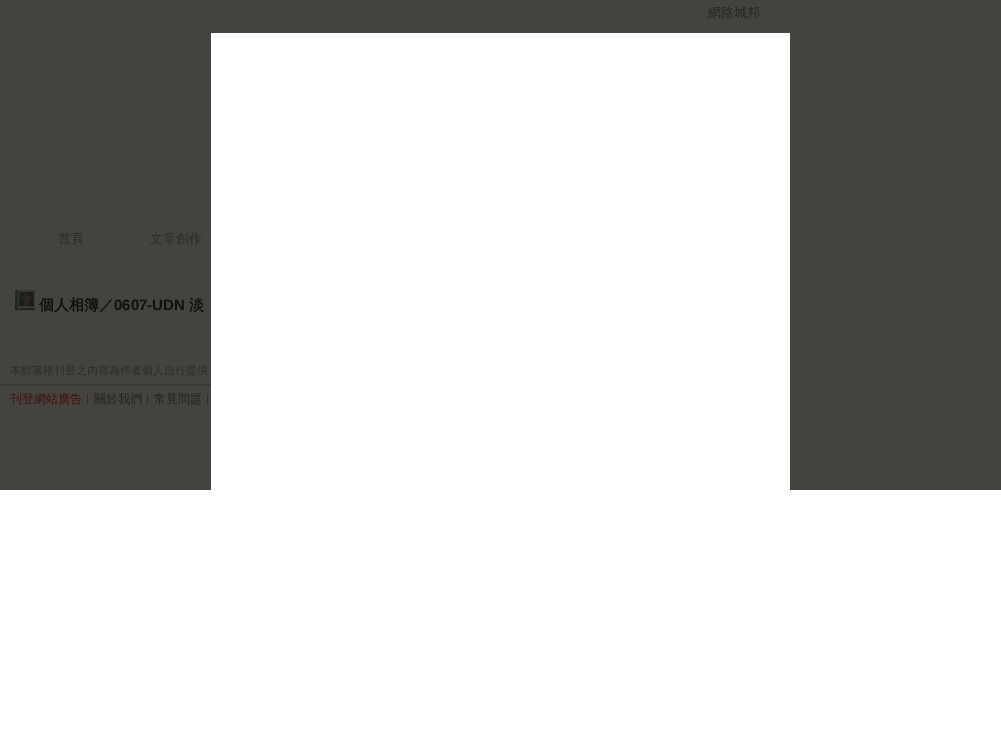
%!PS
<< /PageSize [1001 735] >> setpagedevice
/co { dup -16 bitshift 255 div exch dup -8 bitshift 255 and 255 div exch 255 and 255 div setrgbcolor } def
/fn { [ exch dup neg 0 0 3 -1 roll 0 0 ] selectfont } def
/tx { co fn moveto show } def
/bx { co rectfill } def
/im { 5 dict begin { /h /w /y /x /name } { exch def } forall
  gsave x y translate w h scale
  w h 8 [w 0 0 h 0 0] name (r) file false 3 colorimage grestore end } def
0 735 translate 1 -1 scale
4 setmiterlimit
0 0 1001 735 16#FFFFFF bx
0 0 1001 490 16#444340 bx
(media/1.raw) 15 290 20 20 im
0 384 211 2 16#3A3936 bx
211 33 579 457 16#FFFFFF bx
(網路城邦) 708 17 /WenQuanYiZenHei-Medium 13 16#252421 tx
(首頁) 58 243 /WenQuanYiZenHei-Medium 13 16#2C2B28 tx
(文章創作) 150 243 /WenQuanYiZenHei-Medium 13 16#2C2B28 tx
(個人相簿／) 39 310 /WenQuanYiZenHei-Bold 15 16#11100D tx
(0607-UDN) 114 310 /LiberationSans-Bold 15 16#11100D tx
(淡) 189 310 /WenQuanYiZenHei-Bold 15 16#11100D tx
(本部落格刊登之內容為作者個人自行提供) 10 374 /WenQuanYiZenHei-Medium 11 16#2C2B28 tx
(刊登網站廣告) 10 403 /WenQuanYiZenHei-Medium 12 16#44100D tx
(︱) 82 403 /WenQuanYiZenHei-Medium 12 16#1B1A17 tx
(關於我們) 94 403 /WenQuanYiZenHei-Medium 12 16#252421 tx
(︱) 142 403 /WenQuanYiZenHei-Medium 12 16#1B1A17 tx
(常見問題) 154 403 /WenQuanYiZenHei-Medium 12 16#252421 tx
(︱) 202 403 /WenQuanYiZenHei-Medium 12 16#1B1A17 tx
showpage
